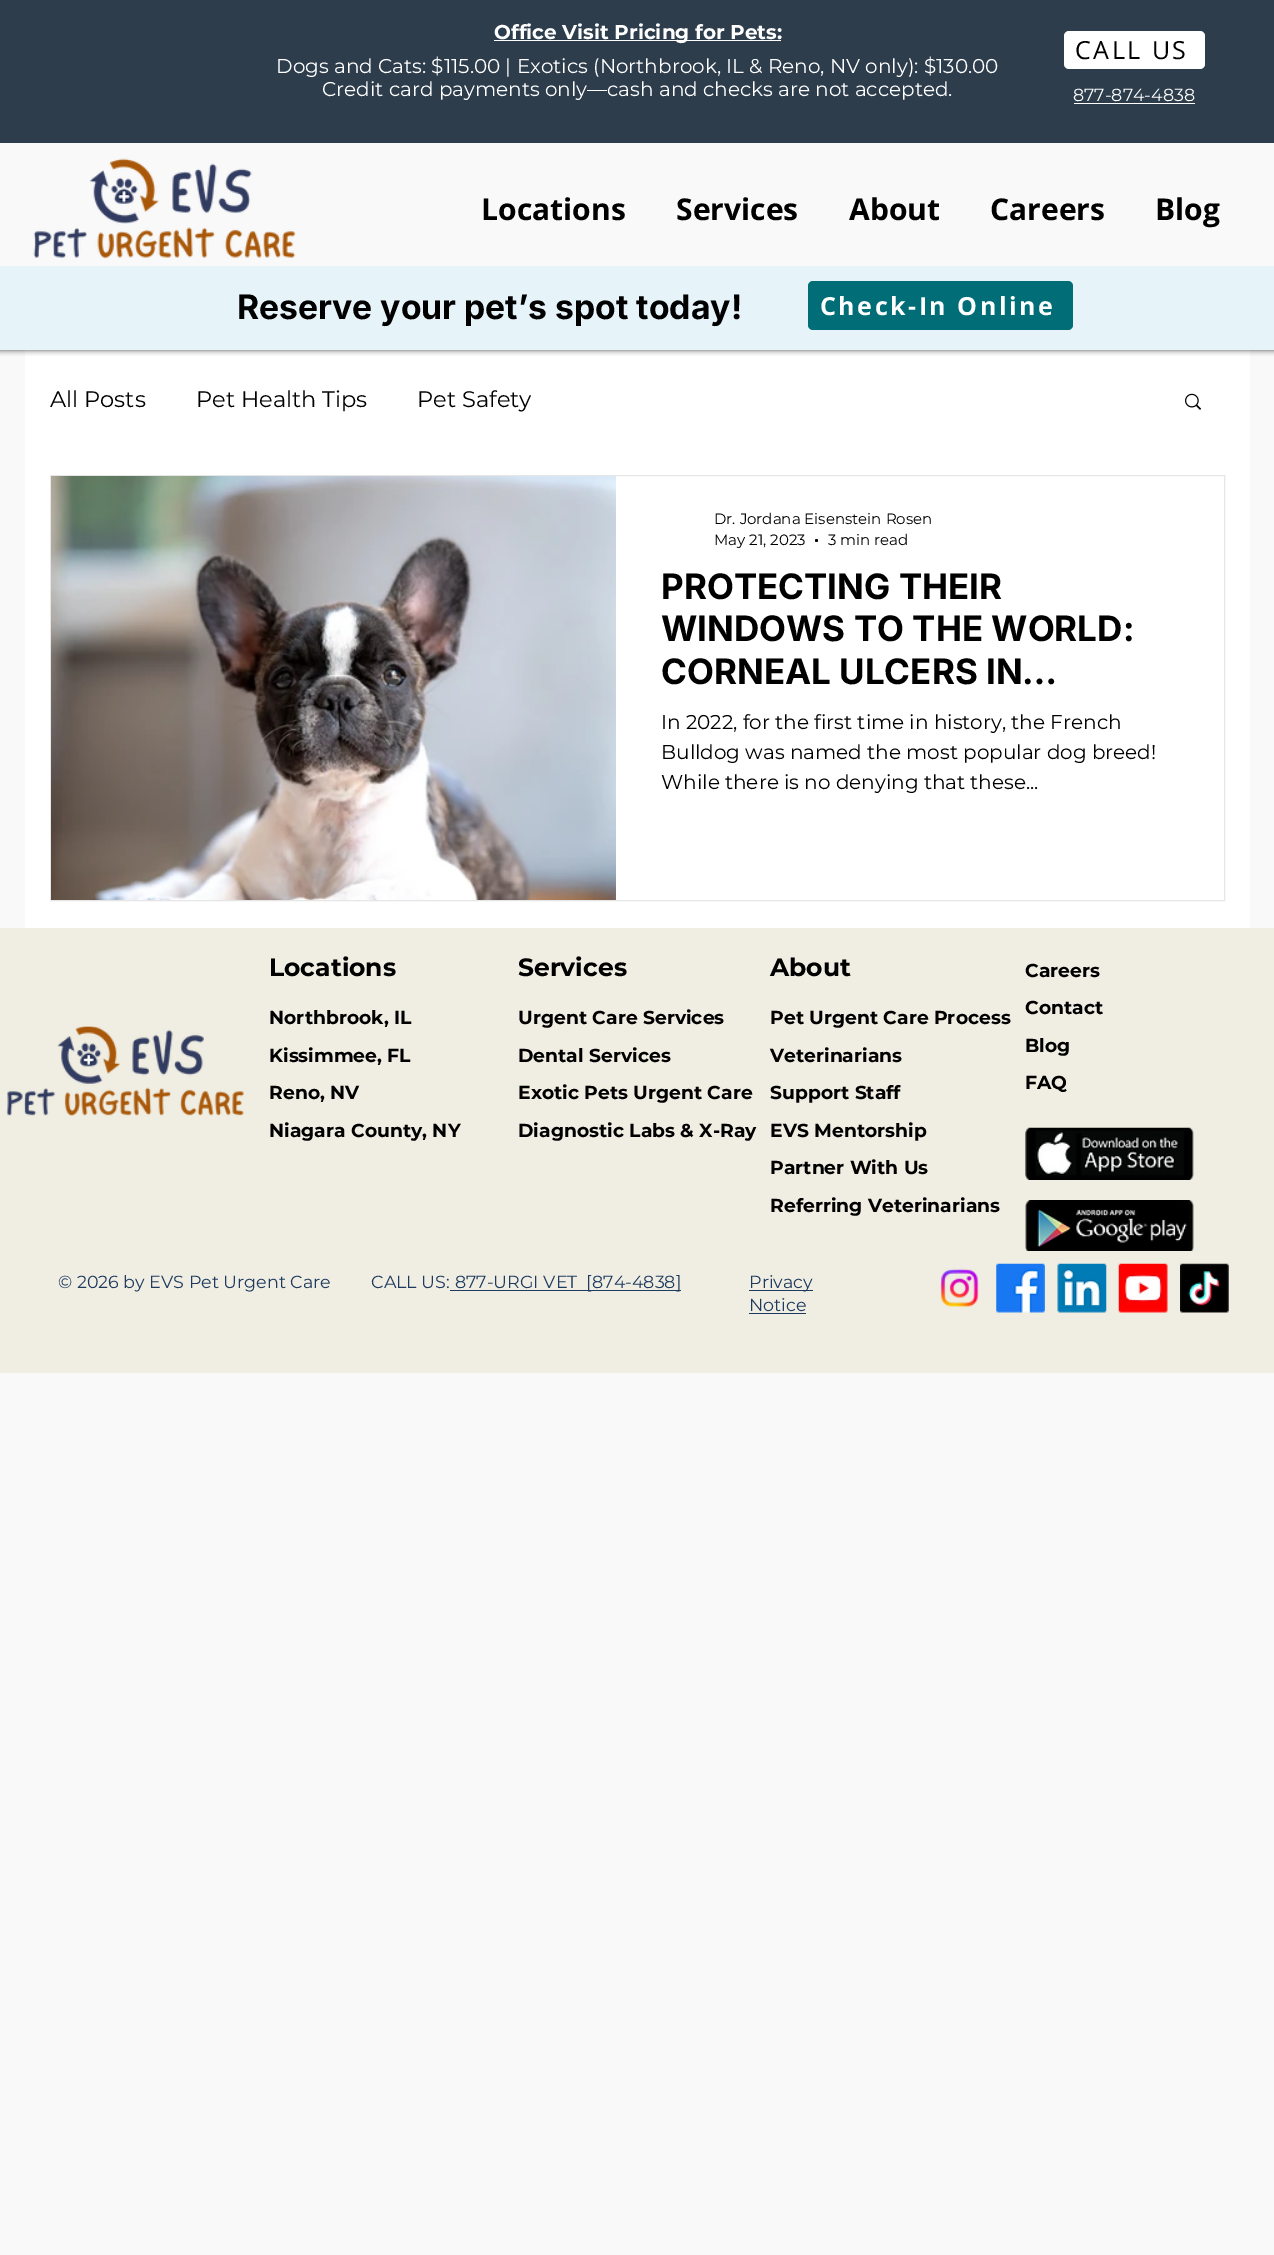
%!PS
<< /PageSize [1274 2255] /PageUsesTransparency true >> setpagedevice
/mt/moveto load def
/fl/fill load def
/gs/gsave load def
/gr/grestore load def
/co { dup -16 bitshift 255 div exch dup -8 bitshift 255 and 255 div exch 255 and 255 div setrgbcolor } def
/fn { [ exch dup neg 0 0 3 -1 roll 0 0 ] selectfont } def
/tx { co fn moveto show } def
/bx { co rectfill } def
/al { dup .setfillconstantalpha .setstrokeconstantalpha } def
/ci { newpath 0 360 arc closepath } def
/rr { 5 dict begin { /r /h /w /y /x } { exch def } forall
  x r add y moveto x w add y 2 copy h add r arct x w add y h add x 1 index r arct
  x y h add x y r arct x y 2 copy exch w add exch r arct closepath end } def
/sh { 12 dict begin { /a /b /q /h /w /y /x } { exch def } forall gsave /was 0 def
  9 -2 -9 { dup b mul 4 div /e exch def 1 sub .425 mul 2.718 exch exp 1 add a .99 .min exch div /now exch def
    1 1 now sub 1 was sub div sub al /was now def
    w h .min e 2 mul add 0 gt { x e sub y e sub w e 2 mul add h e 2 mul add
      q e add b .6 mul add w h .min 2 div e add .min 0 .max rr fill } if } for grestore end } def
/im { 5 dict begin { /h /w /y /x /name } { exch def } forall
  gsave x y translate w h scale
  w h 8 [w 0 0 h 0 0] name (r) file false 3 colorimage grestore end } def
0 .pushpdf14devicefilter
0 2255 translate 1 -1 scale
4 setmiterlimit
0 0 1274 2255 16#F9F9F9 bx
25 350 1225 578 16#FFFFFF bx
gs
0 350 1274 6 rectclip
16#000000 co
0 0 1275 350 0 3 .7 sh
gr
0 0 1274 143 16#2D3D4C bx
494 40 287 1 16#FFFFFF bx
1064 31 141 38 5 rr fl
1074 103 121 1 16#FFFFFF bx
(media/1.raw) 33 158 263 101 im
0 266 1274 84 16#E6F4F9 bx
16#006D77 co
808 281 265 49 5 rr fl
(media/2.raw) 1185 393 17 17 im
16#E6E6E6 co
50.5 475.5 1174 425 rectstroke
(media/3.raw) 51 476 565 424 im
16#000000 co
816.5 540.5 1.5 ci fl
0 928 1274 445 16#F0EEE2 bx
(media/4.raw) 6 1026 238 91 im
(media/5.raw) 1025 1127 169 53 im
(media/6.raw) 1025 1200 169 51 im
450 1290 231 1 16#1E3A5F bx
749 1290 64 1 16#1E3A5F bx
749 1313 57 1 16#1E3A5F bx
(media/7.raw) 940 1268 39 40 im
(media/8.raw) 996 1263 49 50 im
(media/9.raw) 1057 1263 50 50 im
(media/10.raw) 1118 1263 50 50 im
(media/11.raw) 1180 1263 49 50 im
(Office Visit Pricing for Pets:) 494 39 /Montserrat-Bold 20 16#FFFFFF tx
(Dogs and Cats: $115.00 | Exotics \(Northbrook, IL & Reno, NV only\): $130.00) 276 73 /Montserrat-Regular 20 16#FFFFFF tx
(Credit card payments only—cash and checks are not accepted.) 322 96 /Montserrat-Regular 20 16#FFFFFF tx
/OpenSans-Regular 25 fn
16#000000 co
1075 59 mt 2.5 0 (CALL US) ashow
(877-874-4838) 1073 101 /Montserrat-Regular 17.5 16#FFFFFF tx
(Locations) 481 220 /OpenSans-Bold 30 16#000000 tx
(Services) 676 220 /OpenSans-Bold 30 16#000000 tx
(About) 849 220 /OpenSans-Bold 30 16#000000 tx
(Careers) 990 220 /OpenSans-Bold 30 16#000000 tx
(Blog) 1155 220 /OpenSans-Bold 30 16#000000 tx
(Reserve your pet’s spot today!) 237 319 /Inter-Bold 33.75 16#000000 tx
/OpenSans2-Bold 25 fn
16#FFFFFF co
820 315 mt 2.5 0 (Check-In Online) ashow
(All Posts) 50 407 /Montserrat-Regular 22.5 16#000000 tx
(Pet Health Tips) 196 407 /Montserrat-Regular 22.5 16#000000 tx
(Pet Safety) 417 407 /Montserrat-Regular 22.5 16#000000 tx
(Dr. Jordana Eisenstein Rosen) 714 524 /Montserrat-Regular 15 16#000000 tx
(May 21, 2023) 714 545 /Montserrat-Regular 15 16#000000 tx
(3 min read) 828 545 /Montserrat-Regular 15 16#000000 tx
(PROTECTING THEIR) 661 599 /Inter-Bold 35 16#000000 tx
(WINDOWS TO THE WORLD:) 661 641 /Inter-Bold 35 16#000000 tx
(CORNEAL ULCERS IN…) 661 684 /Inter-Bold 35 16#000000 tx
(In 2022, for the first time in history, the French) 661 729 /Montserrat-Regular 20 16#000000 tx
(Bulldog was named the most popular dog breed!) 661 759 /Montserrat-Regular 20 16#000000 tx
(While there is no denying that these...) 661 789 /Montserrat-Regular 20 16#000000 tx
(Locations) 269 976 /Montserrat-Bold 25 16#000000 tx
(Northbrook, IL) 269 1024 /Montserrat-Bold 18.75 16#000000 tx
(Kissimmee, FL) 269 1062 /Montserrat-Bold 18.75 16#000000 tx
(Reno, NV) 269 1099 /Montserrat-Bold 18.75 16#000000 tx
(Niagara County, NY) 269 1137 /Montserrat-Bold 18.75 16#000000 tx
(Services) 518 976 /Montserrat-Bold 25 16#000000 tx
(Urgent Care Services) 518 1024 /Montserrat-Bold 18.75 16#000000 tx
(Dental Services) 518 1062 /Montserrat-Bold 18.75 16#000000 tx
(Exotic Pets Urgent Care) 518 1099 /Montserrat-Bold 18.75 16#000000 tx
(Diagnostic Labs & X-Ray) 518 1137 /Montserrat-Bold 18.75 16#000000 tx
(About) 770 976 /Montserrat-Bold 25 16#000000 tx
(Pet Urgent Care Process) 770 1024 /Montserrat-Bold 18.75 16#000000 tx
(Veterinarians) 770 1062 /Montserrat-Bold 18.75 16#000000 tx
(Support Staff) 770 1099 /Montserrat-Bold 18.75 16#000000 tx
(EVS Mentorship) 770 1137 /Montserrat-Bold 18.75 16#000000 tx
(Partner With Us) 770 1174 /Montserrat-Bold 18.75 16#000000 tx
(Referring Veterinarians) 770 1212 /Montserrat-Bold 18.75 16#000000 tx
(Careers) 1025 977 /Montserrat-Bold 18.75 16#000000 tx
(Contact) 1025 1014 /Montserrat-Bold 18.75 16#000000 tx
(Blog) 1025 1052 /Montserrat-Bold 18.75 16#000000 tx
(FAQ) 1025 1089 /Montserrat-Bold 18.75 16#000000 tx
(© 2026 by EVS Pet Urgent Care) 58 1288 /Montserrat-Regular 17.5 16#1E3A5F tx
(CALL US:) 371 1288 /Montserrat-Regular 17.5 16#1E3A5F tx
(877-URGI VET  [874-4838]) 455 1288 /Montserrat-Regular 17.5 16#1E3A5F tx
(Privacy) 749 1288 /Montserrat-Regular 17.5 16#1E3A5F tx
(Notice) 749 1311 /Montserrat-Regular 17.5 16#1E3A5F tx
.poppdf14devicefilter showpage
